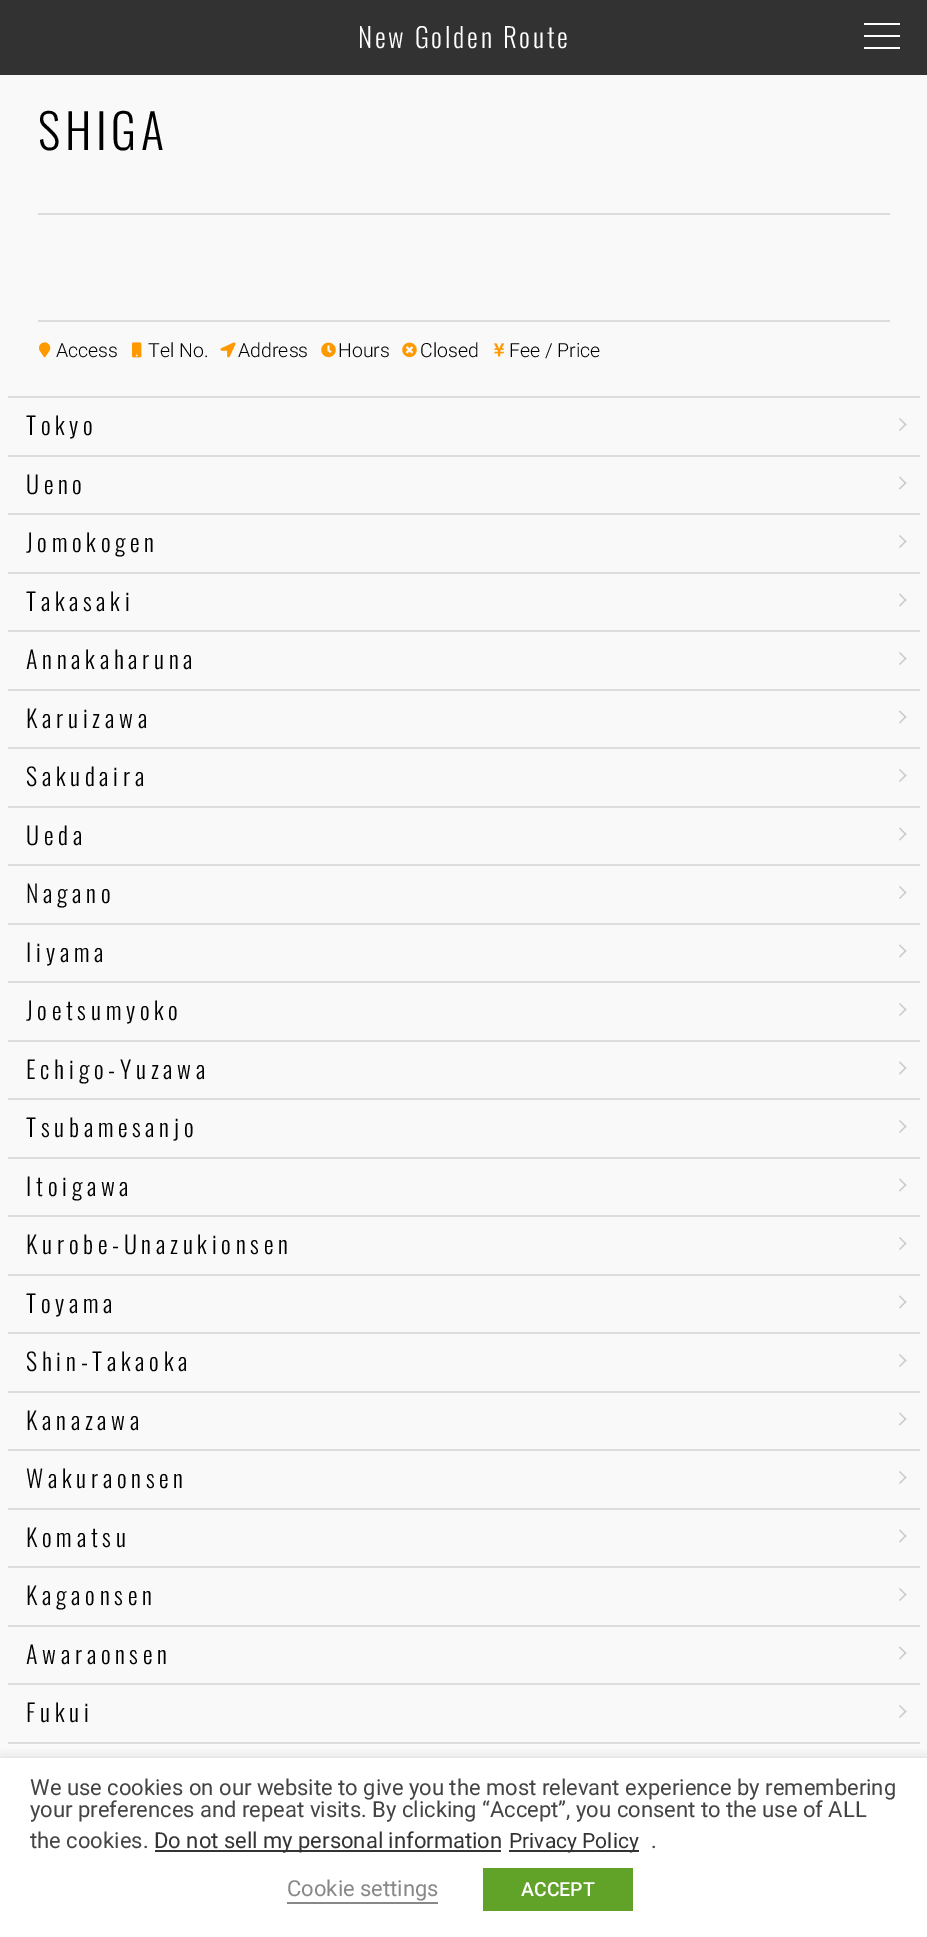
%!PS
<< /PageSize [927 1937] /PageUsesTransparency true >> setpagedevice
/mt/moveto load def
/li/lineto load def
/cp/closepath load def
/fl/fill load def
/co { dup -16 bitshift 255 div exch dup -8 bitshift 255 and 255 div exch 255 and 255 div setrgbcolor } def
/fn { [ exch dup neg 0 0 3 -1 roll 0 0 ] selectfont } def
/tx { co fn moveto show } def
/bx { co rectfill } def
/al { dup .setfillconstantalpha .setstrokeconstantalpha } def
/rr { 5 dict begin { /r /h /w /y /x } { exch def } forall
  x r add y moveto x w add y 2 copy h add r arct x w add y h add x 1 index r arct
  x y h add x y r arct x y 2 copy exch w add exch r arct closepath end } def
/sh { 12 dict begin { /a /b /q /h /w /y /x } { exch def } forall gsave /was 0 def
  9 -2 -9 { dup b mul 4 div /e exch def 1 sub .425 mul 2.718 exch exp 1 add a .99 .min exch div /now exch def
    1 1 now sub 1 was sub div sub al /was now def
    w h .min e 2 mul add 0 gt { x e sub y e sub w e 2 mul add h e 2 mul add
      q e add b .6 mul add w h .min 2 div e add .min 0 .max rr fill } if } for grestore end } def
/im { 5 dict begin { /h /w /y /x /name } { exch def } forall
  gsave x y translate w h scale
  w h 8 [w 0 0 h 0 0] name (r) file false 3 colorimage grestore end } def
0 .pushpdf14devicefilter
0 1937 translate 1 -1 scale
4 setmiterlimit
0 0 927 1937 16#F9F9F9 bx
0 0 927 75 16#323232 bx
864 23 36 2 16#FFFFFF bx
864 35 36 2 16#FFFFFF bx
864 47 36 2 16#FFFFFF bx
38 213 852 2 16#DDDDDD bx
38 320 852 2 16#DDDDDD bx
(media/1.raw) 39 342 12 16 im
(media/2.raw) 132 342 10 16 im
(media/3.raw) 220 342 16 16 im
(media/4.raw) 321 342 15 16 im
(media/5.raw) 402 342 15 16 im
(media/6.raw) 494 343 11 14 im
8 396 912 2 16#DDDDDD bx
8 455 912 2 16#DDDDDD bx
16#CCCCCC co
900 418 mt 906.5 424.5 li 905.5 425.5 li 899 419 li cp fl
905.5 423.5 mt 906.5 424.5 li 900 431 li 899 430 li cp fl
8 513 912 2 16#DDDDDD bx
16#CCCCCC co
900 476.5 mt 906.5 483 li 905.5 484 li 899 477.5 li cp fl
905.5 482 mt 906.5 483 li 900 489.5 li 899 488.5 li cp fl
8 572 912 2 16#DDDDDD bx
16#CCCCCC co
900 535 mt 906.5 541.5 li 905.5 542.5 li 899 536 li cp fl
905.5 540.5 mt 906.5 541.5 li 900 548 li 899 547 li cp fl
8 630 912 2 16#DDDDDD bx
16#CCCCCC co
900 593.5 mt 906.5 600 li 905.5 601 li 899 594.5 li cp fl
905.5 599 mt 906.5 600 li 900 606.5 li 899 605.5 li cp fl
8 689 912 2 16#DDDDDD bx
16#CCCCCC co
900 652 mt 906.5 658.5 li 905.5 659.5 li 899 653 li cp fl
905.5 657.5 mt 906.5 658.5 li 900 665 li 899 664 li cp fl
8 747 912 2 16#DDDDDD bx
16#CCCCCC co
900 710.5 mt 906.5 717 li 905.5 718 li 899 711.5 li cp fl
905.5 716 mt 906.5 717 li 900 723.5 li 899 722.5 li cp fl
8 806 912 2 16#DDDDDD bx
16#CCCCCC co
900 769 mt 906.5 775.5 li 905.5 776.5 li 899 770 li cp fl
905.5 774.5 mt 906.5 775.5 li 900 782 li 899 781 li cp fl
8 864 912 2 16#DDDDDD bx
16#CCCCCC co
900 827.5 mt 906.5 834 li 905.5 835 li 899 828.5 li cp fl
905.5 833 mt 906.5 834 li 900 840.5 li 899 839.5 li cp fl
8 923 912 2 16#DDDDDD bx
16#CCCCCC co
900 886 mt 906.5 892.5 li 905.5 893.5 li 899 887 li cp fl
905.5 891.5 mt 906.5 892.5 li 900 899 li 899 898 li cp fl
8 981 912 2 16#DDDDDD bx
16#CCCCCC co
900 944.5 mt 906.5 951 li 905.5 952 li 899 945.5 li cp fl
905.5 950 mt 906.5 951 li 900 957.5 li 899 956.5 li cp fl
8 1040 912 2 16#DDDDDD bx
16#CCCCCC co
900 1003 mt 906.5 1009.5 li 905.5 1010.5 li 899 1004 li cp fl
905.5 1008.5 mt 906.5 1009.5 li 900 1016 li 899 1015 li cp fl
8 1098 912 2 16#DDDDDD bx
16#CCCCCC co
900 1061.5 mt 906.5 1068 li 905.5 1069 li 899 1062.5 li cp fl
905.5 1067 mt 906.5 1068 li 900 1074.5 li 899 1073.5 li cp fl
8 1157 912 2 16#DDDDDD bx
16#CCCCCC co
900 1120 mt 906.5 1126.5 li 905.5 1127.5 li 899 1121 li cp fl
905.5 1125.5 mt 906.5 1126.5 li 900 1133 li 899 1132 li cp fl
8 1215 912 2 16#DDDDDD bx
16#CCCCCC co
900 1178.5 mt 906.5 1185 li 905.5 1186 li 899 1179.5 li cp fl
905.5 1184 mt 906.5 1185 li 900 1191.5 li 899 1190.5 li cp fl
8 1274 912 2 16#DDDDDD bx
16#CCCCCC co
900 1237 mt 906.5 1243.5 li 905.5 1244.5 li 899 1238 li cp fl
905.5 1242.5 mt 906.5 1243.5 li 900 1250 li 899 1249 li cp fl
8 1332 912 2 16#DDDDDD bx
16#CCCCCC co
900 1295.5 mt 906.5 1302 li 905.5 1303 li 899 1296.5 li cp fl
905.5 1301 mt 906.5 1302 li 900 1308.5 li 899 1307.5 li cp fl
8 1391 912 2 16#DDDDDD bx
16#CCCCCC co
900 1354 mt 906.5 1360.5 li 905.5 1361.5 li 899 1355 li cp fl
905.5 1359.5 mt 906.5 1360.5 li 900 1367 li 899 1366 li cp fl
8 1449 912 2 16#DDDDDD bx
16#CCCCCC co
900 1412.5 mt 906.5 1419 li 905.5 1420 li 899 1413.5 li cp fl
905.5 1418 mt 906.5 1419 li 900 1425.5 li 899 1424.5 li cp fl
8 1508 912 2 16#DDDDDD bx
16#CCCCCC co
900 1471 mt 906.5 1477.5 li 905.5 1478.5 li 899 1472 li cp fl
905.5 1476.5 mt 906.5 1477.5 li 900 1484 li 899 1483 li cp fl
8 1566 912 2 16#DDDDDD bx
16#CCCCCC co
900 1529.5 mt 906.5 1536 li 905.5 1537 li 899 1530.5 li cp fl
905.5 1535 mt 906.5 1536 li 900 1542.5 li 899 1541.5 li cp fl
8 1625 912 2 16#DDDDDD bx
16#CCCCCC co
900 1588 mt 906.5 1594.5 li 905.5 1595.5 li 899 1589 li cp fl
905.5 1593.5 mt 906.5 1594.5 li 900 1601 li 899 1600 li cp fl
8 1683 912 2 16#DDDDDD bx
16#CCCCCC co
900 1646.5 mt 906.5 1653 li 905.5 1654 li 899 1647.5 li cp fl
905.5 1652 mt 906.5 1653 li 900 1659.5 li 899 1658.5 li cp fl
8 1742 912 2 16#DDDDDD bx
16#CCCCCC co
900 1705 mt 906.5 1711.5 li 905.5 1712.5 li 899 1706 li cp fl
905.5 1710.5 mt 906.5 1711.5 li 900 1718 li 899 1717 li cp fl
16#000000 co
0 1766 927 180 0 7.5 .5 sh
0 1758 927 179 16#FFFFFF bx
155 1850 346 2 16#333333 bx
509 1850 130 2 16#333333 bx
287 1902 151 2 16#898888 bx
483 1868 150 43 16#61A229 bx
/Oswald-Light 27 fn
16#FFFFFF co
358 48 mt 2.75 0 (New Golden Route) ashow
/Oswald-Light 48 fn
16#000000 co
38 150 mt 4.75 0 (SHIGA) ashow
(Access) 56 357 /Roboto-Light 19.5 16#000000 tx
(Tel No.) 148 357 /Roboto-Light 19.5 16#000000 tx
(Address) 238 357 /Roboto-Light 19.5 16#000000 tx
(Hours) 338 357 /Roboto-Light 19.5 16#000000 tx
(Closed) 420 357 /Roboto-Light 19.5 16#000000 tx
(Fee / Price) 509 357 /Roboto-Light 19.5 16#000000 tx
/Oswald-Light 24 fn
26 435 mt 4.75 0 (Tokyo) ashow
26 494 mt 4.75 0 (Ueno) ashow
26 552 mt 4.75 0 (Jomokogen) ashow
26 611 mt 4.75 0 (Takasaki) ashow
26 669 mt 4.75 0 (Annakaharuna) ashow
26 728 mt 4.75 0 (Karuizawa) ashow
26 786 mt 4.75 0 (Sakudaira) ashow
26 845 mt 4.75 0 (Ueda) ashow
26 903 mt 4.75 0 (Nagano) ashow
26 962 mt 4.75 0 (Iiyama) ashow
26 1020 mt 4.75 0 (Joetsumyoko) ashow
26 1079 mt 4.75 0 (Echigo-Yuzawa) ashow
26 1137 mt 4.75 0 (Tsubamesanjo) ashow
26 1196 mt 4.75 0 (Itoigawa) ashow
26 1254 mt 4.75 0 (Kurobe-Unazukionsen) ashow
26 1313 mt 4.75 0 (Toyama) ashow
26 1371 mt 4.75 0 (Shin-Takaoka) ashow
26 1430 mt 4.75 0 (Kanazawa) ashow
26 1488 mt 4.75 0 (Wakuraonsen) ashow
26 1547 mt 4.75 0 (Komatsu) ashow
26 1605 mt 4.75 0 (Kagaonsen) ashow
26 1664 mt 4.75 0 (Awaraonsen) ashow
26 1722 mt 4.75 0 (Fukui) ashow
(We use cookies on our website to give you the most relevant experience by remembering) 30 1795 /Roboto-Regular 22 16#444444 tx
(your preferences and repeat visits. By clicking “Accept”, you consent to the use of ALL) 30 1817 /Roboto-Regular 22 16#444444 tx
(the cookies.) 30 1848 /Roboto-Regular 22 16#444444 tx
(Do not sell my personal information) 154 1848 /Roboto-Regular 22 16#333333 tx
(Privacy Policy) 509 1848 /Roboto-Regular 21 16#333333 tx
(.) 651 1848 /Roboto-Regular 22 16#444444 tx
(Cookie settings) 287 1896 /Roboto-Regular 22 16#898888 tx
(ACCEPT) 521 1896 /Roboto-Medium 19.5 16#FFFFFF tx
.poppdf14devicefilter showpage
